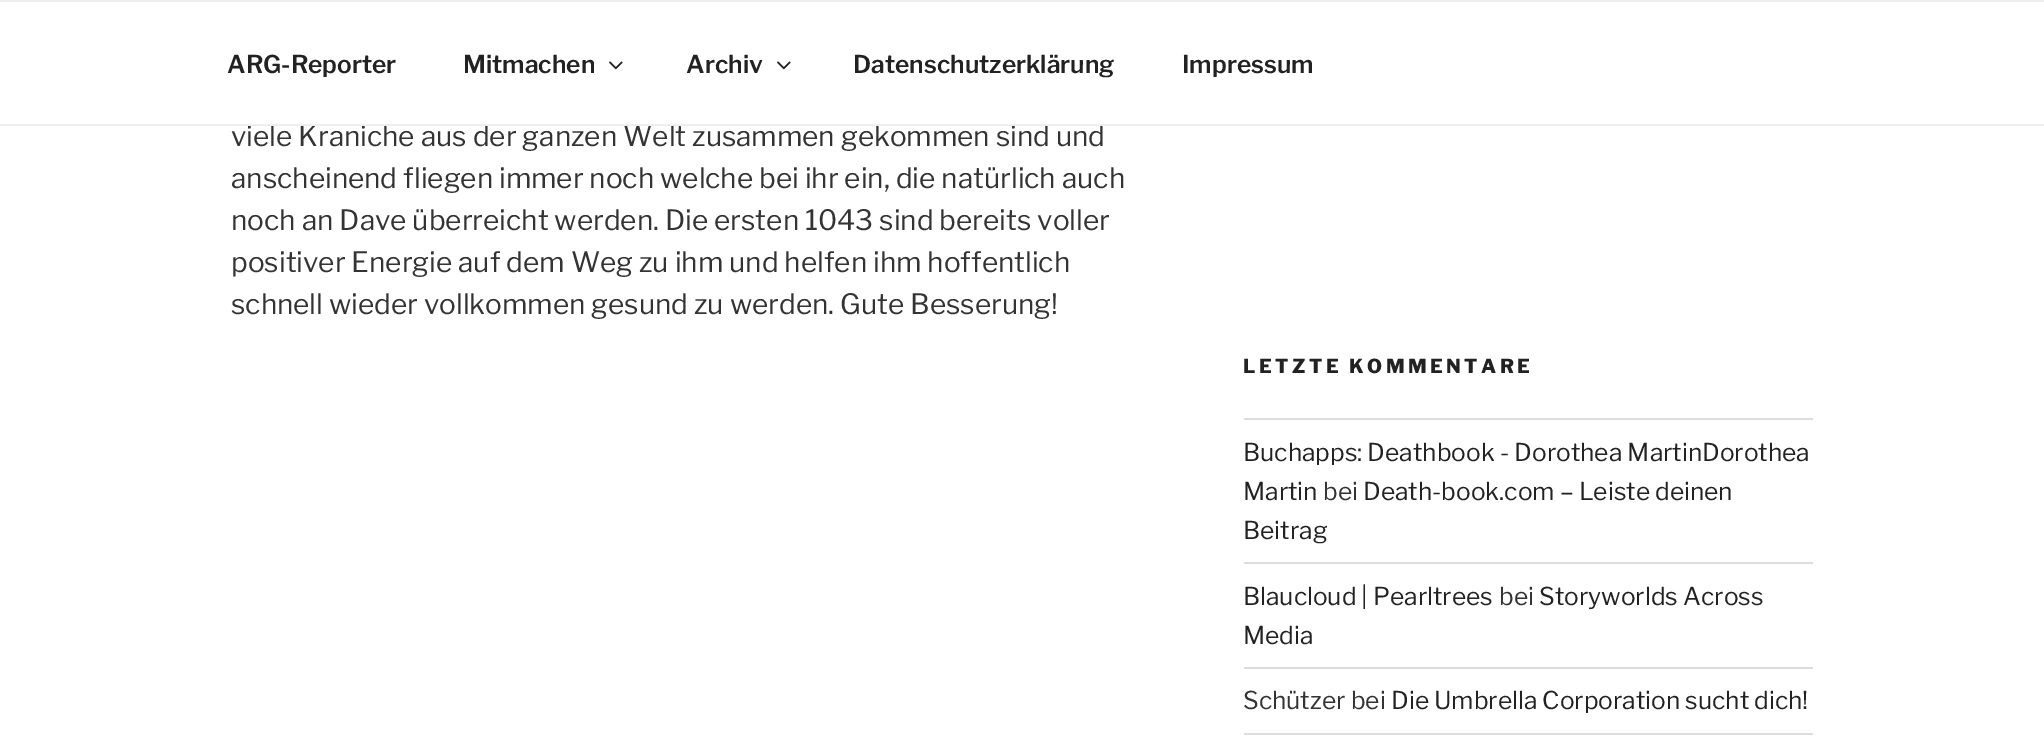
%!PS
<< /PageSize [2044 756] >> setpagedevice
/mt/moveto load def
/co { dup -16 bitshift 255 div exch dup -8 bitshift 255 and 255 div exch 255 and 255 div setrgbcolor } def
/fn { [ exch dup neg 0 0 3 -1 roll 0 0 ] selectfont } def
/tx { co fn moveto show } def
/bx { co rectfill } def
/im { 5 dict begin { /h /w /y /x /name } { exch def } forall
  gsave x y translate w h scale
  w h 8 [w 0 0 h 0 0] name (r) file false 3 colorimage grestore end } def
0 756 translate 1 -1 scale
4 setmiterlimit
0 0 2044 756 16#FFFFFF bx
0 0 2044 2 16#EEEEEE bx
(media/1.raw) 609 61 14 9 im
(media/1.raw) 777 61 14 9 im
1244 418 569 2 16#DDDDDD bx
1244 562 569 2 16#DDDDDD bx
1244 667 569 2 16#DDDDDD bx
1244 733 569 2 16#DDDDDD bx
(ARG-Reporter) 227 73 /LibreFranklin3-Thin 24.5 16#222222 tx
(Mitmachen) 463 73 /LibreFranklin3-Thin 24.5 16#222222 tx
(Archiv) 686 73 /LibreFranklin3-Thin 24.5 16#222222 tx
(Datenschutzerklärung) 853 73 /LibreFranklin3-Thin 24.5 16#222222 tx
(Impressum) 1182 73 /LibreFranklin3-Thin 24.5 16#222222 tx
(viele Kraniche aus der ganzen Welt zusammen gekommen sind und) 231 146 /LibreFranklin-Thin 28 16#333333 tx
0 124 2044 2 16#EEEEEE bx
(anscheinend fliegen immer noch welche bei ihr ein, die natürlich auch) 231 188 /LibreFranklin-Thin 28 16#333333 tx
(noch an Dave überreicht werden. Die ersten 1043 sind bereits voller) 231 230 /LibreFranklin-Thin 28 16#333333 tx
(positiver Energie auf dem Weg zu ihm und helfen ihm hoffentlich) 231 272 /LibreFranklin-Thin 28 16#333333 tx
(schnell wieder vollkommen gesund zu werden. Gute Besserung!) 231 314 /LibreFranklin-Thin 28 16#333333 tx
/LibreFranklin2-Thin 19.25 fn
16#222222 co
1243 373 mt 3.5 0 (LETZTE KOMMENTARE) ashow
(Buchapps: Deathbook - Dorothea MartinDorothea) 1243 461 /LibreFranklin-Thin 24.5 16#222222 tx
(Martin) 1243 500 /LibreFranklin-Thin 24.5 16#222222 tx
(bei) 1323 500 /LibreFranklin-Thin 24.5 16#333333 tx
(Death-book.com – Leiste deinen) 1363 500 /LibreFranklin-Thin 24.5 16#222222 tx
(Beitrag) 1243 539 /LibreFranklin-Thin 24.5 16#222222 tx
(Blaucloud | Pearltrees) 1243 605 /LibreFranklin-Thin 24.5 16#222222 tx
(bei) 1499 605 /LibreFranklin-Thin 24.5 16#333333 tx
(Storyworlds Across) 1539 605 /LibreFranklin-Thin 24.5 16#222222 tx
(Media) 1243 644 /LibreFranklin-Thin 24.5 16#222222 tx
(Schützer bei) 1243 709 /LibreFranklin-Thin 24.5 16#333333 tx
(Die Umbrella Corporation sucht dich!) 1391 709 /LibreFranklin-Thin 24.5 16#222222 tx
showpage
